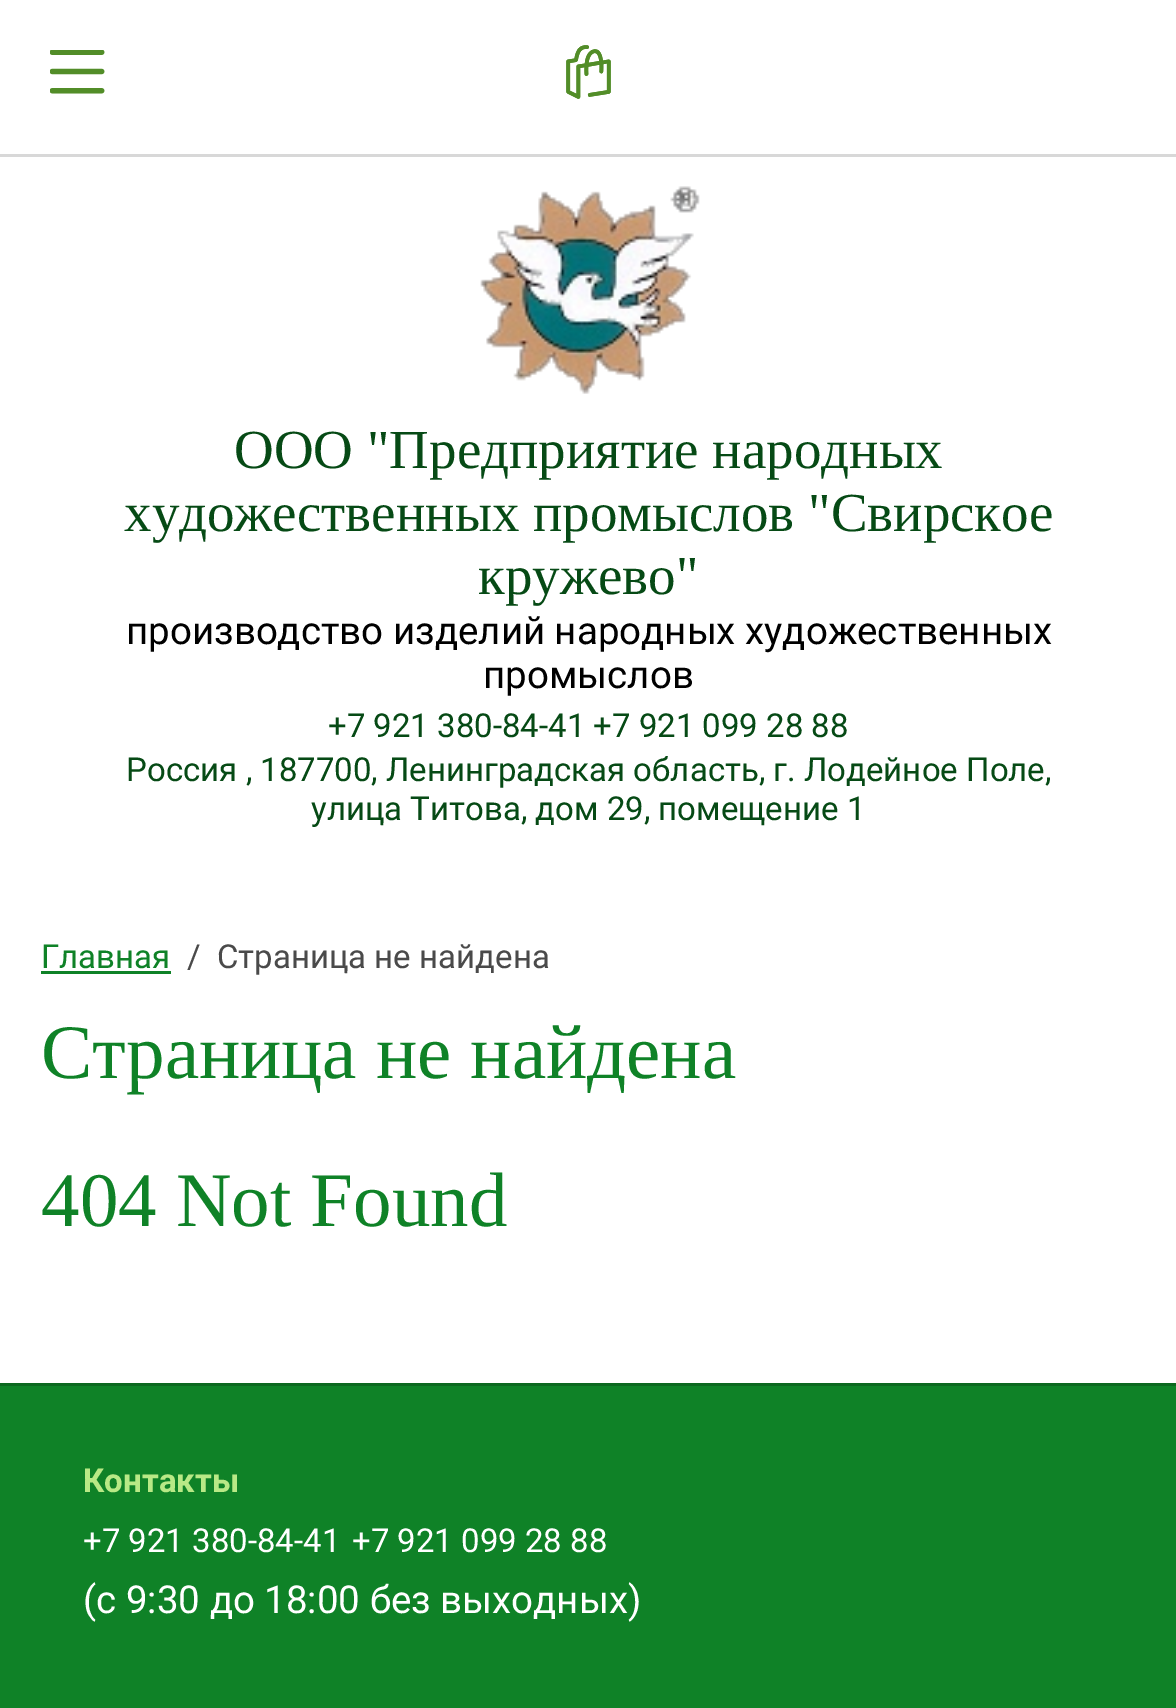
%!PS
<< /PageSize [1176 1708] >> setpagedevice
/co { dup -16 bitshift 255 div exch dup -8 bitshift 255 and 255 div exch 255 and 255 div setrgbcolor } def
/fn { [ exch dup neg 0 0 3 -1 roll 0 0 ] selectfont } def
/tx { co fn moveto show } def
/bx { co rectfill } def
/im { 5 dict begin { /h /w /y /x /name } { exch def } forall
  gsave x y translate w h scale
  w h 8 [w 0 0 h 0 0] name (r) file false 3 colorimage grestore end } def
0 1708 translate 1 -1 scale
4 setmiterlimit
0 0 1176 1708 16#FFFFFF bx
0 154 1176 3 16#D8D8D8 bx
(media/1.raw) 50 50 55 44 im
(media/2.raw) 566 45 45 54 im
(media/3.raw) 480 186 220 208 im
41 971 130 3 16#0F8227 bx
0 1386 1176 322 16#0F8227 bx
0 1383 1176 3 16#0C681F bx
(ООО "Предприятие народных) 234 468 /LiberationSerif-Regular 55 16#064A15 tx
(художественных промыслов "Свирское) 124 531 /LiberationSerif-Regular 55 16#064A15 tx
(кружево") 478 594 /LiberationSerif-Regular 55 16#064A15 tx
(производство изделий народных художественных) 126 644 /roboto-Regular 38.5 16#000000 tx
(промыслов) 483 688 /roboto-Regular 38.5 16#000000 tx
(+7 921 380-84-41 +7 921 099 28 88) 328 737 /roboto-Regular 33 16#064A15 tx
(Россия , 187700, Ленинградская область, г. Лодейное Поле,) 126 781 /roboto-Regular 33 16#064A15 tx
(улица Титова, дом 29, помещение 1) 311 820 /roboto-Regular 33 16#064A15 tx
(Главная) 41 968 /roboto-Regular 33 16#0F8227 tx
(/  Страница не найдена) 187 968 /roboto-Regular 33 16#4A4A4A tx
(Страница не найдена) 41 1078 /LiberationSerif-Regular 77 16#0F8227 tx
(404 Not Found) 41 1226 /LiberationSerif-Regular 77 16#0F8227 tx
(Контакты) 83 1492 /roboto-Bold 33 16#B8E986 tx
(+7 921 380-84-41) 83 1552 /roboto-Regular 33 16#FFFFFF tx
(+7 921 099 28 88) 352 1552 /roboto-Regular 33 16#FFFFFF tx
(\(с 9:30 до 18:00 без выходных\)) 83 1613 /roboto-Regular 38.5 16#FFFFFF tx
showpage
